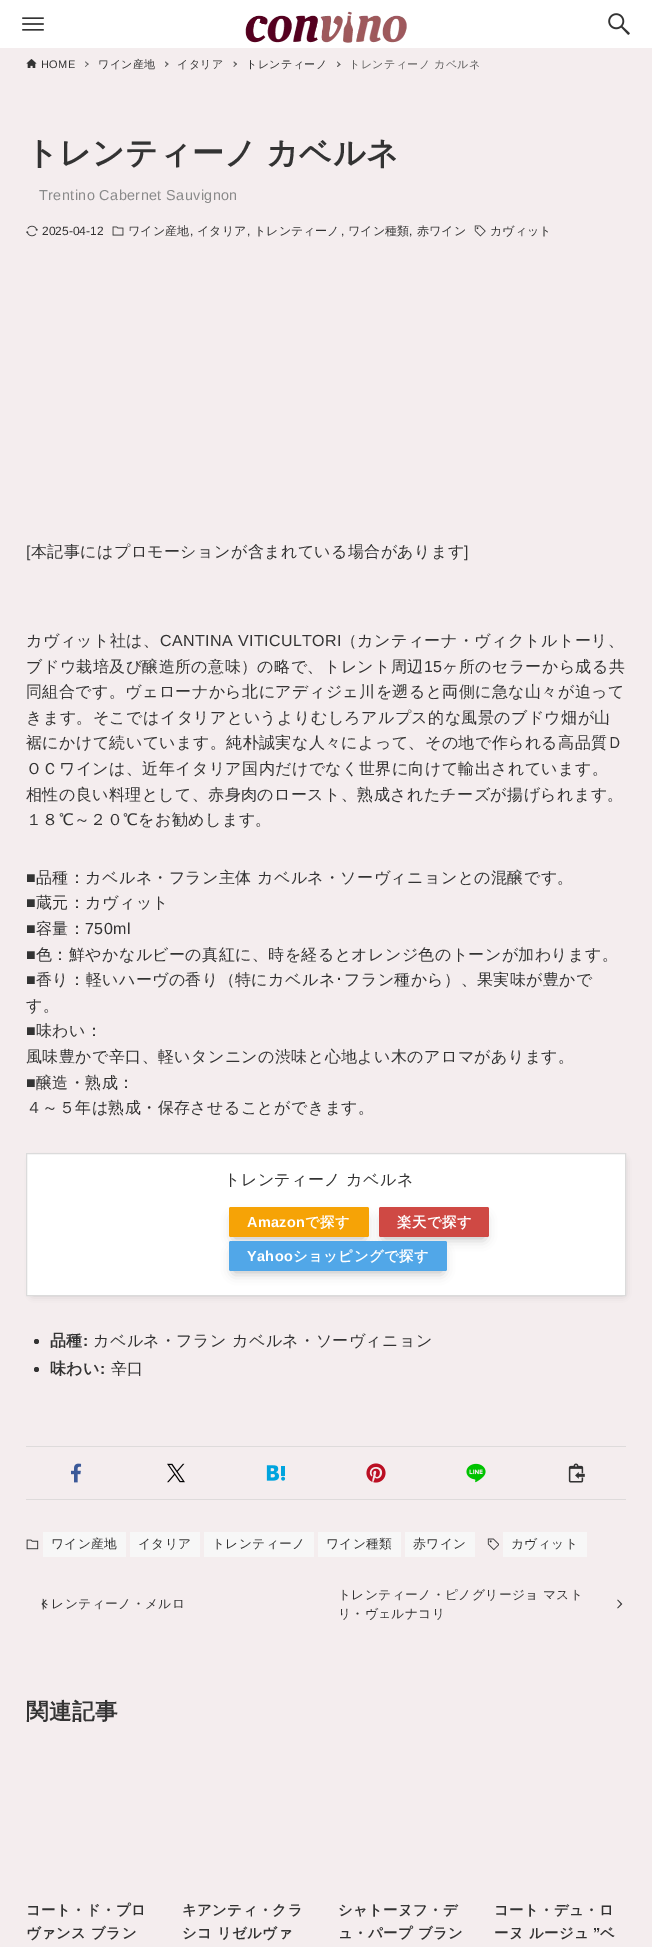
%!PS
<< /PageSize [652 1947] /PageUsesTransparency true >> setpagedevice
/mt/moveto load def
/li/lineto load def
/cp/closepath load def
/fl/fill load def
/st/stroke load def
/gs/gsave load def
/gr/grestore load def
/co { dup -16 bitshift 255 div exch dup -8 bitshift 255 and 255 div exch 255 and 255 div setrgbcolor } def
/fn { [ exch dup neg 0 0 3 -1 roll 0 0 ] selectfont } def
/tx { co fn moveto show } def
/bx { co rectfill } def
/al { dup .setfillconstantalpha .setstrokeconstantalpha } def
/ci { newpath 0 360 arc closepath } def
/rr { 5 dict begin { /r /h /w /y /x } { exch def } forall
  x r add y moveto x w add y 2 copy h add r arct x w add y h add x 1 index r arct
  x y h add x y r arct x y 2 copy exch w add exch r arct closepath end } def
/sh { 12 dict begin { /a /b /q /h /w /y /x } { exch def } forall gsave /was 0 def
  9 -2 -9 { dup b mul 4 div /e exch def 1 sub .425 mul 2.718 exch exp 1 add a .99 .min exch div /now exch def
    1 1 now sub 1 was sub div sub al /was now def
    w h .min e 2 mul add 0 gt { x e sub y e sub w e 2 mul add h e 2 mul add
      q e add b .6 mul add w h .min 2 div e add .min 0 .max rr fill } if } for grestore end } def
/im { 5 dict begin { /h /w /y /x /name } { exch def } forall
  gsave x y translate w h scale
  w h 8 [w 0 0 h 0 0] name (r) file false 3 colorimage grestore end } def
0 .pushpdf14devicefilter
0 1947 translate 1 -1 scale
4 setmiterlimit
0 0 652 1947 16#F4EDEE bx
0 0 652 48 16#FFFFFF bx
(media/1.raw) 22 17 22 14 im
(media/2.raw) 245 11 162 32 im
(media/3.raw) 608 13 22 22 im
(media/4.raw) 26 59 11 9 im
16#636262 co
85.5 61.5 mt 88.5 64 li 88 65 li 85 62 li cp fl
88 63.5 mt 88.5 64 li 85.5 67 li 85 66.5 li cp fl
165.5 61.5 mt 168.5 64 li 167.5 65 li 165 62 li cp fl
167.5 63.5 mt 168.5 64 li 165.5 67 li 165 66.5 li cp fl
234 61.5 mt 237 64 li 236 65 li 233.5 62 li cp fl
236 63.5 mt 237 64 li 234 67 li 233.5 66.5 li cp fl
337.5 61.5 mt 340.5 64.5 li 339.5 65 li 337 62 li cp fl
339.5 63.5 mt 340.5 64.5 li 337.5 67 li 337 66.5 li cp fl
(media/5.raw) 26 225 12 12 im
(media/6.raw) 112 226 12 10 im
(media/7.raw) 474 225 12 12 im
16#000000 co
33 1161 590 133 0 4 .25 sh
16#FFFFFF co
26.5 1153.5 mt 625.5 1153.5 li 625.5 1295.5 li 26.5 1295.5 li cp gs fl gr
16#DBDBDB co
st
16#000000 co
234 1218 130 20 0 6 .3 sh
16#F6A306 co
229 1207 140 30 2 rr fl
16#000000 co
384 1218 100 20 0 6 .3 sh
16#CF4944 co
379 1207 110 30 2 rr fl
16#000000 co
234 1252 208 20 0 6 .3 sh
16#51A7E8 co
229 1241 218 30 2 rr fl
16#333333 co
36.5 1341.5 2.5 ci fl
36.5 1369.5 2.5 ci fl
26 1446 600 1 16#DEDBDB bx
26 1499 600 1 16#DEDBDB bx
(media/8.raw) 71 1463 11 20 im
(media/9.raw) 167 1463 18 20 im
(media/10.raw) 266 1465 20 16 im
(media/11.raw) 366 1463 20 20 im
(media/12.raw) 466 1463 20 20 im
(media/13.raw) 568 1463 17 20 im
(media/14.raw) 26 1539 13 11 im
43 1532 83 25 16#F7F7F7 bx
130 1532 70 25 16#F7F7F7 bx
204 1532 110 25 16#F7F7F7 bx
318 1532 83 25 16#F7F7F7 bx
405 1532 70 25 16#F7F7F7 bx
(media/15.raw) 487 1538 12 13 im
503 1532 84 25 16#F7F7F7 bx
(media/16.raw) 41 1599 6 10 im
(media/17.raw) 617 1599 6 10 im
/LiberationSans-Regular 11 fn
16#333333 co
41 68 mt .4 0 (HOME) ashow
/WenQuanYiZenHei-Medium 11 fn
98 68 mt .4 0 (ワイン産地) ashow
177 68 mt .4 0 (イタリア) ashow
246 68 mt .4 0 (トレンティーノ) ashow
16#636262 co
349 68 mt .4 0 (トレンティーノ カベルネ) ashow
/WenQuanYiZenHei-Bold 32 fn
16#333333 co
26 164 mt -1 0 32 .4 0 (トレンティーノ カベルネ) awidthshow
/LiberationSans-Regular 14.4 fn
16#8A8A8A co
39 200 mt .4 0 (Trentino Cabernet Sauvignon) ashow
(2025-04-12) 42 235 /LiberationSans-Regular 12 16#333333 tx
(ワイン産地) 128 235 /WenQuanYiZenHei-Medium 12 16#333333 tx
(,) 190 235 /LiberationSans-Regular 12 16#333333 tx
(イタリア) 197 235 /WenQuanYiZenHei-Medium 12 16#333333 tx
(,) 247 235 /LiberationSans-Regular 12 16#333333 tx
(トレンティーノ) 254 235 /WenQuanYiZenHei-Medium 12 16#333333 tx
(,) 341 235 /LiberationSans-Regular 12 16#333333 tx
(ワイン種類) 348 235 /WenQuanYiZenHei-Medium 12 16#333333 tx
(,) 409 235 /LiberationSans-Regular 12 16#333333 tx
(赤ワイン) 417 235 /WenQuanYiZenHei-Medium 12 16#333333 tx
(カヴィット) 490 235 /WenQuanYiZenHei-Medium 12 16#333333 tx
/LiberationSans-Regular 16 fn
26 557 mt .4 0 ([) ashow
/WenQuanYiZenHei-Medium 16 fn
31 557 mt .4 0 (本記事にはプロモーションが含まれている場合があります) ashow
/LiberationSans-Regular 16 fn
464 557 mt .4 0 (]) ashow
/WenQuanYiZenHei-Medium 16 fn
26 646 mt .4 0 (カヴィット社は、) ashow
/LiberationSans-Regular 16 fn
160 646 mt .4 0 (CANTINA VITICULTORI) ashow
/WenQuanYiZenHei-Medium 16 fn
341 646 mt .4 0 (（カンティーナ・ヴィクトルトーリ、) ashow
26 672 mt .4 0 (ブドウ栽培及び醸造所の意味）の略で、トレント周辺) ashow
/LiberationSans-Regular 16 fn
424 672 mt .4 0 (15) ashow
/WenQuanYiZenHei-Medium 16 fn
442 672 mt .4 0 (ヶ所のセラーから成る共) ashow
26 697 mt .4 0 (同組合です。ヴェローナから北にアディジェ川を遡ると両側に急な山々が迫って) ashow
26 723 mt .4 0 (きます。そこではイタリアというよりむしろアルプス的な風景のブドウ畑が山) ashow
26 748 mt .4 0 (裾にかけて続いています。純朴誠実な人々によって、その地で作られる高品質Ｄ) ashow
26 774 mt .4 0 (ＯＣワインは、近年イタリア国内だけでなく世界に向けて輸出されています。) ashow
26 800 mt .4 0 (相性の良い料理として、赤身肉のロースト、熟成されたチーズが揚げられます。) ashow
26 825 mt .4 0 (１８℃～２０℃をお勧めします。) ashow
/LiberationSans-Regular 16 fn
26 883 mt .4 0 (■) ashow
/WenQuanYiZenHei-Medium 16 fn
36 883 mt .4 0 (品種：カベルネ・フラン主体 カベルネ・ソーヴィニョンとの混醸です。) ashow
/LiberationSans-Regular 16 fn
26 908 mt .4 0 (■) ashow
/WenQuanYiZenHei-Medium 16 fn
36 908 mt .4 0 (蔵元：カヴィット) ashow
/LiberationSans-Regular 16 fn
26 934 mt .4 0 (■) ashow
/WenQuanYiZenHei-Medium 16 fn
36 934 mt .4 0 (容量：) ashow
/LiberationSans-Regular 16 fn
85 934 mt .4 0 (750ml) ashow
26 960 mt .4 0 (■) ashow
/WenQuanYiZenHei-Medium 16 fn
36 960 mt .4 0 (色：鮮やかなルビーの真紅に、時を経るとオレンジ色のトーンが加わります。) ashow
/LiberationSans-Regular 16 fn
26 985 mt .4 0 (■) ashow
/WenQuanYiZenHei-Medium 16 fn
36 985 mt .4 0 (香り：軽いハーヴの香り（特にカベルネ) ashow
/IPAPGothic-Regular 16 fn
335 985 mt .4 0 (･) ashow
/WenQuanYiZenHei-Medium 16 fn
344 985 mt .4 0 (フラン種から）、果実味が豊かで) ashow
26 1011 mt .4 0 (す。) ashow
/LiberationSans-Regular 16 fn
26 1036 mt .4 0 (■) ashow
/WenQuanYiZenHei-Medium 16 fn
36 1036 mt .4 0 (味わい：) ashow
26 1062 mt .4 0 (風味豊かで辛口、軽いタンニンの渋味と心地よい木のアロマがあります。) ashow
/LiberationSans-Regular 16 fn
26 1088 mt .4 0 (■) ashow
/WenQuanYiZenHei-Medium 16 fn
36 1088 mt .4 0 (醸造・熟成：) ashow
26 1113 mt .4 0 (４～５年は熟成・保存させることができます。) ashow
224 1185 mt .4 0 (トレンティーノ カベルネ) ashow
/LiberationSans-Bold 14.4 fn
16#FFFFFF co
247 1227 mt .4 0 (Amazon) ashow
/WenQuanYiZenHei-Bold 14.4 fn
305 1227 mt .4 0 (で探す) ashow
397 1227 mt .4 0 (楽天で探す) ashow
/LiberationSans-Bold 14.4 fn
247 1261 mt .4 0 (Yahoo) ashow
/WenQuanYiZenHei-Bold 14.4 fn
293 1261 mt .4 0 (ショッピングで探す) ashow
/WenQuanYiZenHei-Bold 16 fn
16#333333 co
50 1346 mt .4 0 (品種) ashow
/LiberationSans-Bold 16 fn
83 1346 mt .4 0 (:) ashow
/WenQuanYiZenHei-Medium 16 fn
93 1346 mt .4 0 (カベルネ・フラン カベルネ・ソーヴィニョン) ashow
/WenQuanYiZenHei-Bold 16 fn
50 1374 mt .4 0 (味わい) ashow
/LiberationSans-Bold 16 fn
100 1374 mt .4 0 (:) ashow
/WenQuanYiZenHei-Medium 16 fn
111 1374 mt .4 0 (辛口) ashow
/WenQuanYiZenHei-Medium 12.75 fn
51 1548 mt .4 0 (ワイン産地) ashow
138 1548 mt .4 0 (イタリア) ashow
212 1548 mt .4 0 (トレンティーノ) ashow
326 1548 mt .4 0 (ワイン種類) ashow
413 1548 mt .4 0 (赤ワイン) ashow
511 1548 mt .4 0 (カヴィット) ashow
38 1608 mt .4 0 (トレンティーノ・メルロ) ashow
338 1599 mt .4 0 (トレンティーノ・ピノグリージョ マスト) ashow
338 1618 mt .4 0 (リ・ヴェルナコリ) ashow
/WenQuanYiZenHei-Bold 22.5 fn
26 1719 mt .4 0 (関連記事) ashow
/WenQuanYiZenHei-Bold 14.4 fn
26 1915 mt .4 0 (コート・ド・プロ) ashow
26 1938 mt .4 0 (ヴァンス ブラン) ashow
182 1915 mt .4 0 (キアンティ・クラ) ashow
182 1938 mt .4 0 (シコ リゼルヴァ) ashow
338 1915 mt .4 0 (シャトーヌフ・デ) ashow
338 1938 mt .4 0 (ュ・パープ ブラン) ashow
494 1915 mt .4 0 (コート・デュ・ロ) ashow
494 1938 mt .4 0 (ーヌ ルージュ) ashow
/LiberationSans-Bold 14.4 fn
593 1938 mt .4 0 (”) ashow
/WenQuanYiZenHei-Bold 14.4 fn
600 1938 mt .4 0 (ベ) ashow
.poppdf14devicefilter showpage
